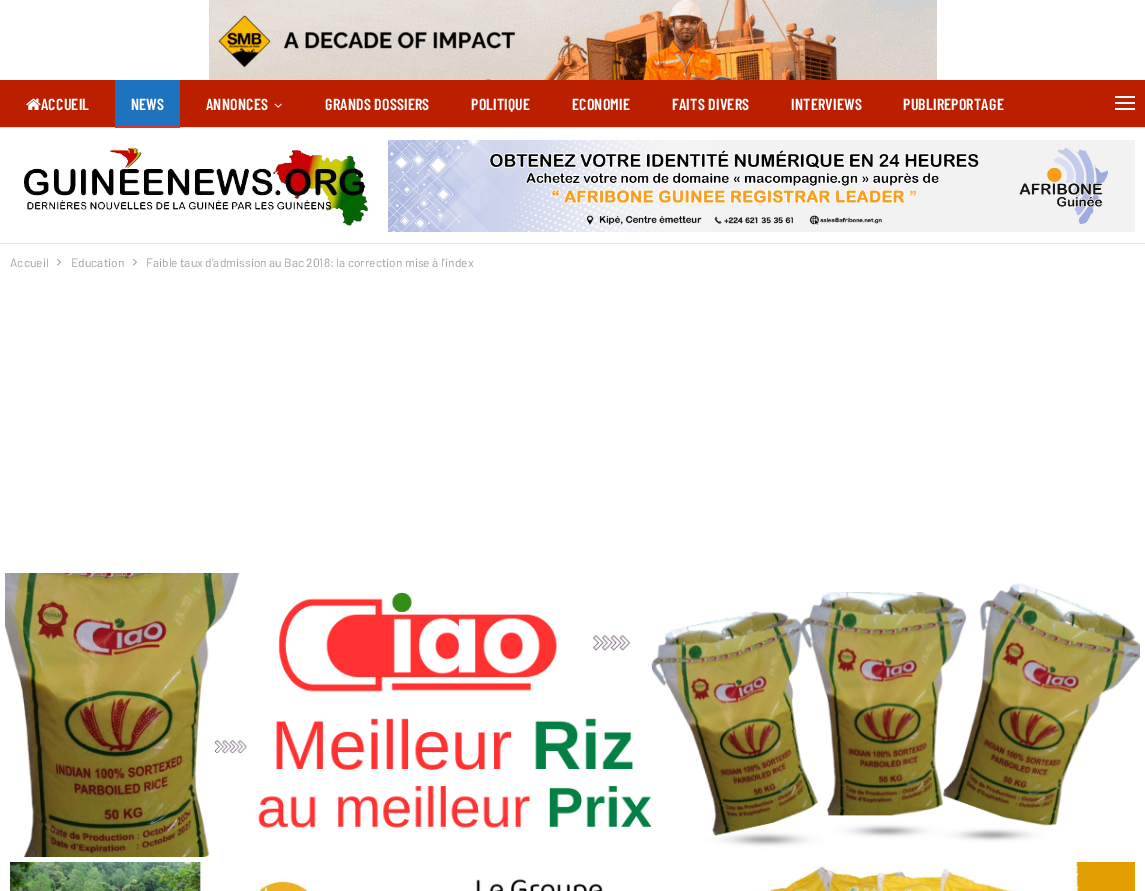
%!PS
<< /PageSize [1145 891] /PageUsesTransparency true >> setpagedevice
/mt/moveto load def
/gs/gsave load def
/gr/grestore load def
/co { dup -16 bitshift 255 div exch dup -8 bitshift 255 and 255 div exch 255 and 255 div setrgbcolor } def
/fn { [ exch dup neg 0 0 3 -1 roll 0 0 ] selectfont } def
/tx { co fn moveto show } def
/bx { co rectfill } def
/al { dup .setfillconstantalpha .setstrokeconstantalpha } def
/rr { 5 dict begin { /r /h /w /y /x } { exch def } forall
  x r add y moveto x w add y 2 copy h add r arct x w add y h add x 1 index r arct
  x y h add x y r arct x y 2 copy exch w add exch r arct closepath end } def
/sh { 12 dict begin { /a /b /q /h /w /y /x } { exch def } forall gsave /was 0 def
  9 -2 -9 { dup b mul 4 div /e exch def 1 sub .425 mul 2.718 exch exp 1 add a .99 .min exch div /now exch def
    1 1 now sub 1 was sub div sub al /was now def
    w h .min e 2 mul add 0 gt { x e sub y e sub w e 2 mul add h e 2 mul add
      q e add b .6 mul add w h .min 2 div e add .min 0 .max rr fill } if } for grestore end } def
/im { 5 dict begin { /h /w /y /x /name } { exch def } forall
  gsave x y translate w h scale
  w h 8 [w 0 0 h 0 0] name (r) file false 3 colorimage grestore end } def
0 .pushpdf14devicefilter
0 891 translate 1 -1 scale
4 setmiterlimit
0 0 1145 891 16#FFFFFF bx
(media/1.raw) 209 0 728 80 im
0 80 1145 47 16#BC1F00 bx
0 127 1145 1 16#DEDEDE bx
(media/2.raw) 26 98 15 12 im
115 80 65 46 16#1E73BE bx
115 126 65 2 16#DD3333 bx
(media/3.raw) 274 103 8 5 im
1115 102 20 2 16#FFFFFF bx
1115 96 20 2 16#FFFFFF bx
1115 108 20 2 16#FFFFFF bx
(media/4.raw) 24 147 344 79 im
(media/5.raw) 388 140 747 92 im
gs
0 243 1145 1 rectclip
16#000000 co
0 244 1145 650 0 1 .27 sh
gr
(media/6.raw) 57 258 4 8 im
(media/6.raw) 133 258 4 8 im
(media/7.raw) 5 573 1135 284 im
(media/8.raw) 10 862 1125 29 im
/BarlowCondensed-SemiBold 16 fn
41 110 mt .2 0 (ACCUEIL) ashow
131 110 mt .2 0 (NEWS) ashow
206 110 mt .2 0 (ANNONCES) ashow
325 110 mt .2 0 (GRANDS DOSSIERS) ashow
471 110 mt .2 0 (POLITIQUE) ashow
572 110 mt .2 0 (ECONOMIE) ashow
672 110 mt .2 0 (FAITS DIVERS) ashow
791 110 mt .2 0 (INTERVIEWS) ashow
903 110 mt .2 0 (PUBLIREPORTAGE) ashow
(Accueil) 10 267 /Barlow-Regular 12 16#9E9E9E tx
(Education) 71 267 /Barlow-Regular 12 16#9E9E9E tx
(Faible taux d’admission au Bac 2018: la correction mise à l’index) 146 267 /Barlow-Regular 12 16#9E9E9E tx
.poppdf14devicefilter showpage
